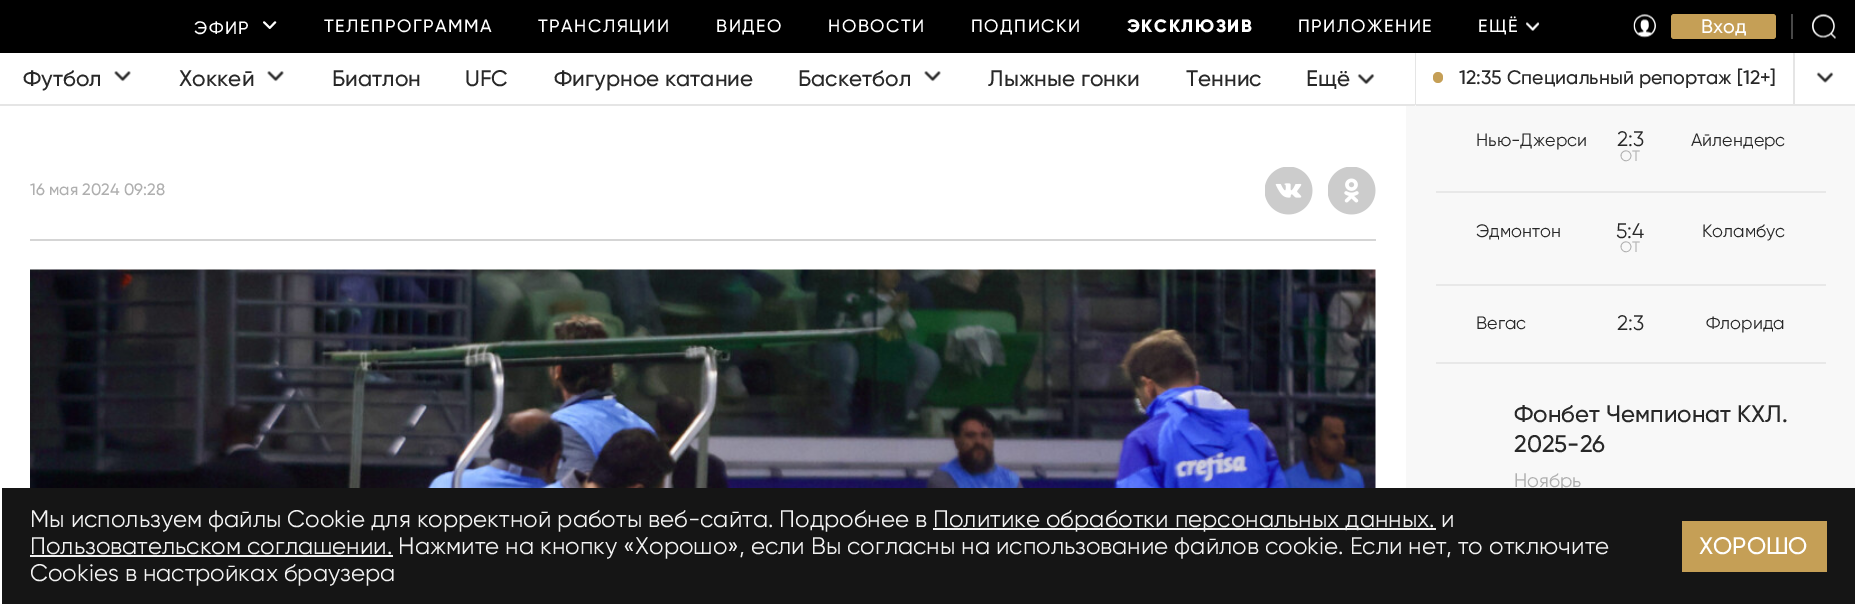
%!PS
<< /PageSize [1855 604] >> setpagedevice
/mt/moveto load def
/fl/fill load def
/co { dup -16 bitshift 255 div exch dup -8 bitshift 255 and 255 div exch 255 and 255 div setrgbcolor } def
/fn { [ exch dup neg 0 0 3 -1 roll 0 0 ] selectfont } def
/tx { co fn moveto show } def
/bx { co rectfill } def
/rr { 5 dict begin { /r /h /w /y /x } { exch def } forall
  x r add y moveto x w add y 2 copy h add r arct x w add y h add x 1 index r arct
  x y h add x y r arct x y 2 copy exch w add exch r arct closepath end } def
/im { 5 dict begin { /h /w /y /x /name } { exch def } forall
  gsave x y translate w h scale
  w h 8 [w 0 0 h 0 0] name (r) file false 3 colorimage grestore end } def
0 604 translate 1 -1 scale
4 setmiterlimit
0 0 1855 604 16#FFFFFF bx
0 0 1855 53 16#000000 bx
(media/1.raw) 263 21 14 8 im
(media/2.raw) 1526 22 14 9 im
(media/3.raw) 1633 14 23 24 im
16#C59F56 co
1671 14 105 25 3 rr fl
1791 14 2 25 16#484848 bx
(media/4.raw) 1812 14 24 25 im
1406 105 449 383 16#F8F8F8 bx
0 104 1415 2 16#E5E5E5 bx
(media/5.raw) 114 71 17 11 im
(media/5.raw) 267 71 17 11 im
(media/5.raw) 924 71 17 11 im
(media/6.raw) 1357 74 18 11 im
1415 53 1 52 16#E5E5E5 bx
1416 104 439 2 16#E5E5E5 bx
16#C59F56 co
1433 72 10 11 5 rr fl
1793 53 2 51 16#E5E5E5 bx
(media/7.raw) 1816 72 18 11 im
30 239 1346 2 16#D5D5D5 bx
(media/8.raw) 1265 167 48 48 im
(media/9.raw) 1328 167 48 48 im
(media/10.raw) 30 269 1346 219 im
1436 191 390 2 16#E8E8E8 bx
1436 284 390 2 16#E8E8E8 bx
1436 362 390 2 16#E8E8E8 bx
/Gilroy-Medium 18 fn
16#FFFFFF co
194 34 mt 1.5 0 (ЭФИР) ashow
324 32 mt 1.5 0 (ТЕЛЕПРОГРАММА) ashow
538 32 mt 1.5 0 (ТРАНСЛЯЦИИ) ashow
716 32 mt 1.5 0 (ВИДЕО) ashow
828 32 mt 1.5 0 (НОВОСТИ) ashow
971 32 mt 1.5 0 (ПОДПИСКИ) ashow
/Gilroy-ExtraBold 18 fn
1127 32 mt 1.5 0 (ЭКСКЛЮЗИВ) ashow
/Gilroy-Medium 18 fn
1298 32 mt 1.5 0 (ПРИЛОЖЕНИЕ) ashow
1478 32 mt 1.5 0 (ЕЩЁ) ashow
(Вход) 1701 33 /Gilroy-Medium 19.5 16#FFFFFF tx
(Футбол) 23 86 /Gilroy-Medium 22.5 16#282828 tx
(Хоккей) 179 86 /Gilroy-Medium 22.5 16#282828 tx
(Биатлон) 332 86 /Gilroy-Medium 22.5 16#282828 tx
(UFC) 465 86 /Gilroy-Medium 22.5 16#282828 tx
(Фигурное катание) 554 86 /Gilroy-Medium 22.5 16#282828 tx
(Баскетбол) 798 86 /Gilroy-Medium 22.5 16#282828 tx
(Лыжные гонки) 988 86 /Gilroy-Medium 22.5 16#282828 tx
(Теннис) 1186 86 /Gilroy-Medium 22.5 16#282828 tx
(Ещё) 1306 86 /Gilroy-Medium 22.5 16#282828 tx
(12:35 Специальный репортаж [12+]) 1459 84 /Gilroy-Medium 19.5 16#282828 tx
(16 мая 2024 09:28) 30 195 /Gilroy-Medium 16.5 16#AFAFAF tx
(Нью-Джерси) 1476 146 /Gilroy-Regular 18 16#282828 tx
(2:3) 1617 146 /Gilroy-Regular 21 16#282828 tx
(Айлендерс) 1691 146 /Gilroy-Regular 18 16#282828 tx
(ОТ) 1620 161 /Gilroy-Regular 15 16#AFAFAF tx
(Эдмонтон) 1476 237 /Gilroy-Regular 18 16#282828 tx
(5:4) 1616 238 /Gilroy-Regular 21 16#282828 tx
(Коламбус) 1702 237 /Gilroy-Regular 18 16#282828 tx
(ОТ) 1620 252 /Gilroy-Regular 15 16#AFAFAF tx
(Вегас) 1476 329 /Gilroy-Regular 18 16#282828 tx
(2:3) 1617 330 /Gilroy-Regular 21 16#282828 tx
(Флорида) 1706 329 /Gilroy-Regular 18 16#282828 tx
(Фонбет Чемпионат КХЛ.) 1514 422 /Gilroy-Medium 24 16#282828 tx
(2025-26) 1514 452 /Gilroy-Medium 24 16#282828 tx
(Ноябрь) 1514 487 /Gilroy-Regular 19.5 16#AFAFAF tx
2 488 1853 116 16#151515 bx
(Мы используем файлы Сookie для корректной работы веб-сайта. Подробнее в) 30 527 /Gilroy-Regular 24 16#F2F2F2 tx
933 528 503 2 16#F2F2F2 bx
(Политике обработки персональных данных. и) 933 527 /Gilroy-Regular 24 16#F2F2F2 tx
30 555 363 2 16#F2F2F2 bx
(Пользовательском соглашении. Нажмите на кнопку «Хорошо», если Вы согласны на использование файлов cookie. Если нет, то отключите) 30 554 /Gilroy-Regular 24 16#F2F2F2 tx
(Cookies в настройках браузера) 30 581 /Gilroy-Regular 24 16#F2F2F2 tx
1682 521 145 51 16#C59F56 bx
(ХОРОШО) 1699 554 /Gilroy-Medium 24 16#FFFFFF tx
showpage
